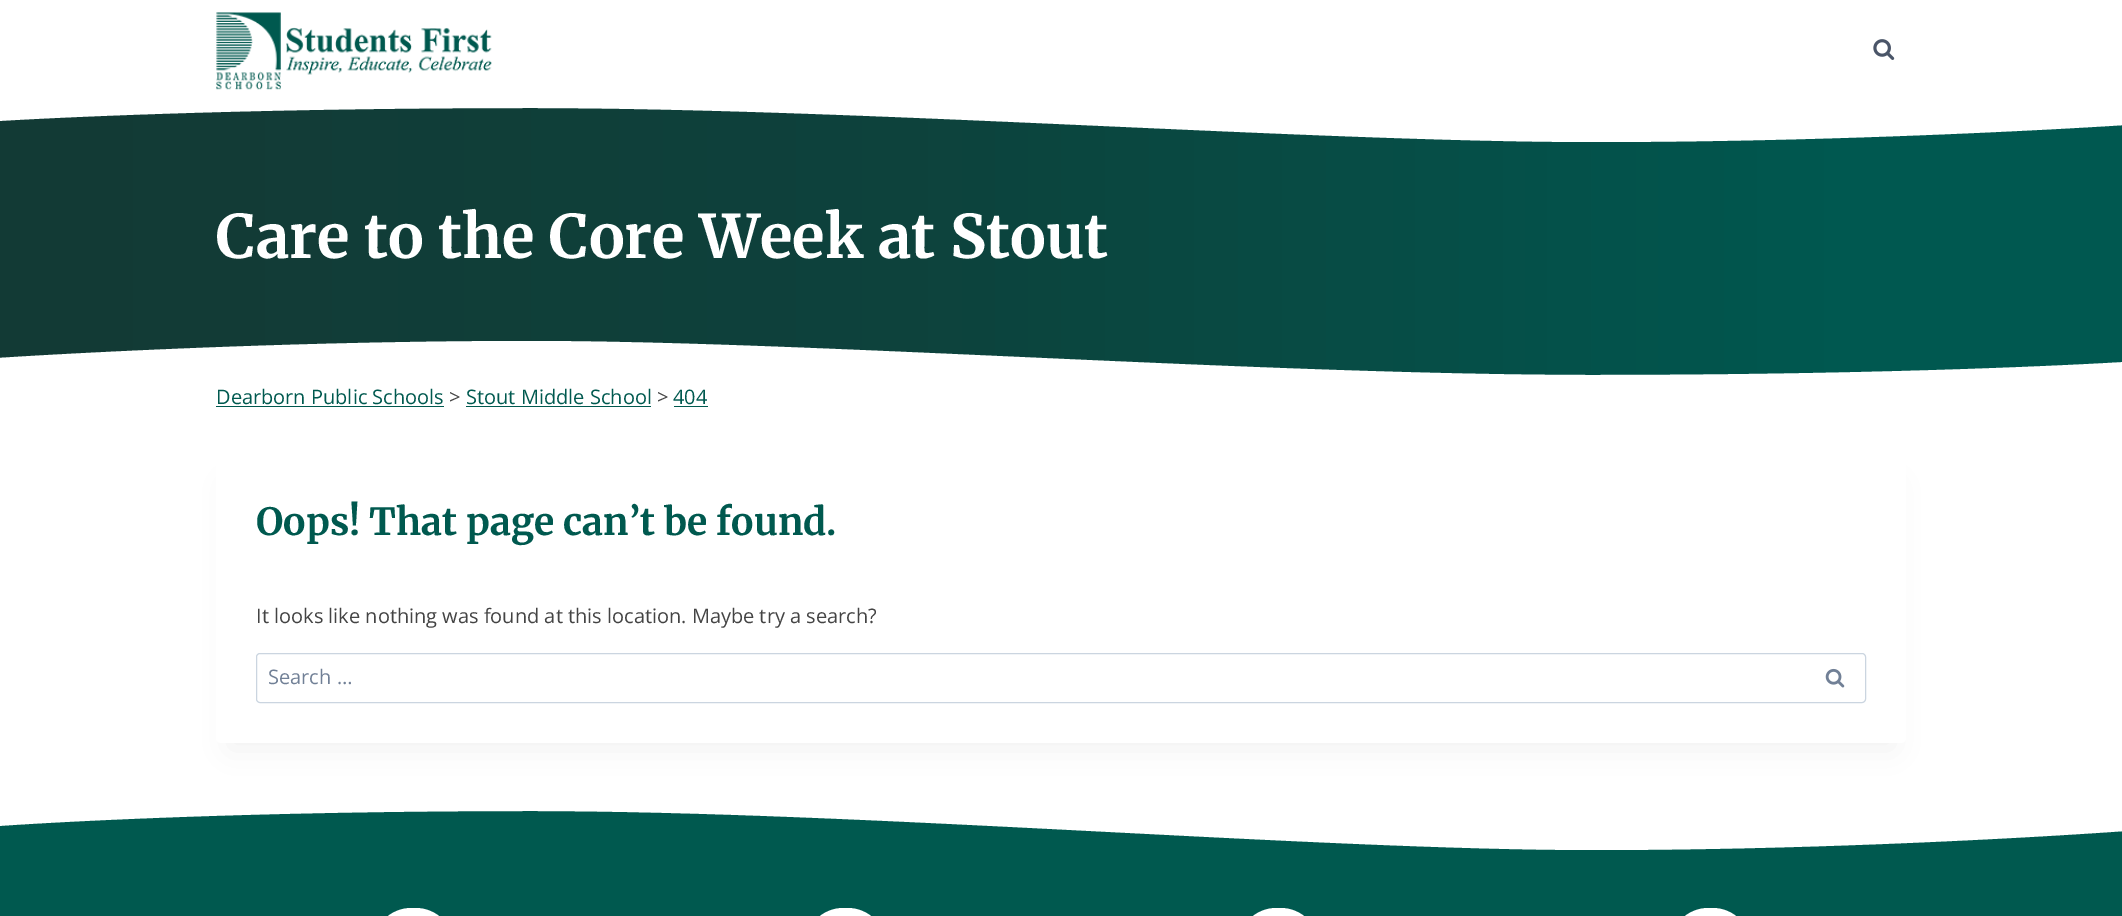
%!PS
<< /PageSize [2122 916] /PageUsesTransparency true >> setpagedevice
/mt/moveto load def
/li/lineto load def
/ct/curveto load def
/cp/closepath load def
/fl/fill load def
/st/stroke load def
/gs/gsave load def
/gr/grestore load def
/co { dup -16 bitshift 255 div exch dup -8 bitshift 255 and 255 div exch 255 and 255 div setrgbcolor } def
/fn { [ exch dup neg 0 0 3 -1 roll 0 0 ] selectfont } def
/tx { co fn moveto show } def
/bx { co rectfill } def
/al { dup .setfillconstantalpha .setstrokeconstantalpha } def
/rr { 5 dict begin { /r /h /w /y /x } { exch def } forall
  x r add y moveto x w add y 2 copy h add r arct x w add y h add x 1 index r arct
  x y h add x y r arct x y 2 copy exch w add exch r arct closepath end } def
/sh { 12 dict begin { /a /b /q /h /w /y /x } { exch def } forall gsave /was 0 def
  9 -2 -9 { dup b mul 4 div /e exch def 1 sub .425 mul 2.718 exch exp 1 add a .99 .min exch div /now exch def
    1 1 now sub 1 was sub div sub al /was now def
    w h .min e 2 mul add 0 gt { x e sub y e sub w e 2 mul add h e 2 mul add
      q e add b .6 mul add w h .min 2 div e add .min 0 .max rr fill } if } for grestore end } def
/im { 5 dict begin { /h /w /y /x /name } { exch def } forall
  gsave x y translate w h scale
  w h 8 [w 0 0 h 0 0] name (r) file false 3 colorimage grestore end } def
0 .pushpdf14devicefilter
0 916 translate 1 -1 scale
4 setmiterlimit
0 0 2122 916 16#FFFFFF bx
(media/1.raw) 216 12 276 78 im
(media/2.raw) 1873 39 22 21 im
gs 0 108 mt 2122 108 li 2122 375 li 0 375 li cp clip newpath
<< /ShadingType 2 /ColorSpace /DeviceRGB /Coords [0 242 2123 242] /Extend [true true] /Function << /FunctionType 3 /Domain [0 1] /Functions [<< /FunctionType 2 /Domain [0 1] /C0 [.075 .227 .208] /C1 [.067 .239 .22] /N 1 >> << /FunctionType 2 /Domain [0 1] /C0 [.067 .239 .22] /C1 [.051 .263 .239] /N 1 >> << /FunctionType 2 /Domain [0 1] /C0 [.051 .263 .239] /C1 [0 .345 .314] /N 1 >> << /FunctionType 2 /Domain [0 1] /C0 [0 .345 .314] /C1 [0 .345 .314] /N 1 >>] /Bounds [.18 .45 .87] /Encode [0 1 0 1 0 1 0 1] >> >> shfill gr
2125 125 mt 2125 125 1869 142 1593 142 ct 1317 142 859 108 530 108 ct 200 108 -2 121 -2 121 ct -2 99 li 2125 99 li cp fl
-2 358 mt -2 358 253 341 530 341 ct 806 341 1264 375 1593 375 ct 1922 375 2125 362 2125 362 ct 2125 384 li -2 384 li cp fl
216 406 228 1 16#00594F bx
466 406 185 1 16#00594F bx
674 406 34 1 16#00594F bx
16#000000 co
229 485 1665 264 0 15.5 .05 sh
16#FFFFFF co
216 454 1690 289 5 rr fl
16#CBD5E0 co
256.5 653.5 1609 49 3.5 rr st
(media/3.raw) 1825 668 20 20 im
0 811 2122 105 16#00594F bx
16#FFFFFF co
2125 831 mt 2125 831 1869 850 1593 850 ct 1317 850 859 811 530 811 ct 200 811 -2 826 -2 826 ct -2 801 li 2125 801 li cp fl
373 908 81 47 38.5 rr fl
805 908 81 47 38.5 rr fl
1238 908 81 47 38.5 rr fl
1670 908 81 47 38.5 rr fl
(Care to the Core Week at Stout) 216 258 /Merriweather-Light 60 16#FFFFFF tx
(Dearborn Public Schools) 216 404 /OpenSans-Regular 20 16#00594F tx
(>) 449 404 /OpenSans-Regular 20 16#444444 tx
(Stout Middle School) 466 404 /OpenSans-Regular 20 16#00594F tx
(>) 657 404 /OpenSans-Regular 20 16#444444 tx
(404) 673 404 /OpenSans-Regular 20 16#00594F tx
(Oops! That page can’t be found.) 256 535 /Merriweather-Light 37.5 16#00594F tx
(It looks like nothing was found at this location. Maybe try a search?) 256 623 /OpenSans-Regular 20 16#444444 tx
(Search …) 268 684 /OpenSans-Regular 20 16#718096 tx
.poppdf14devicefilter showpage
